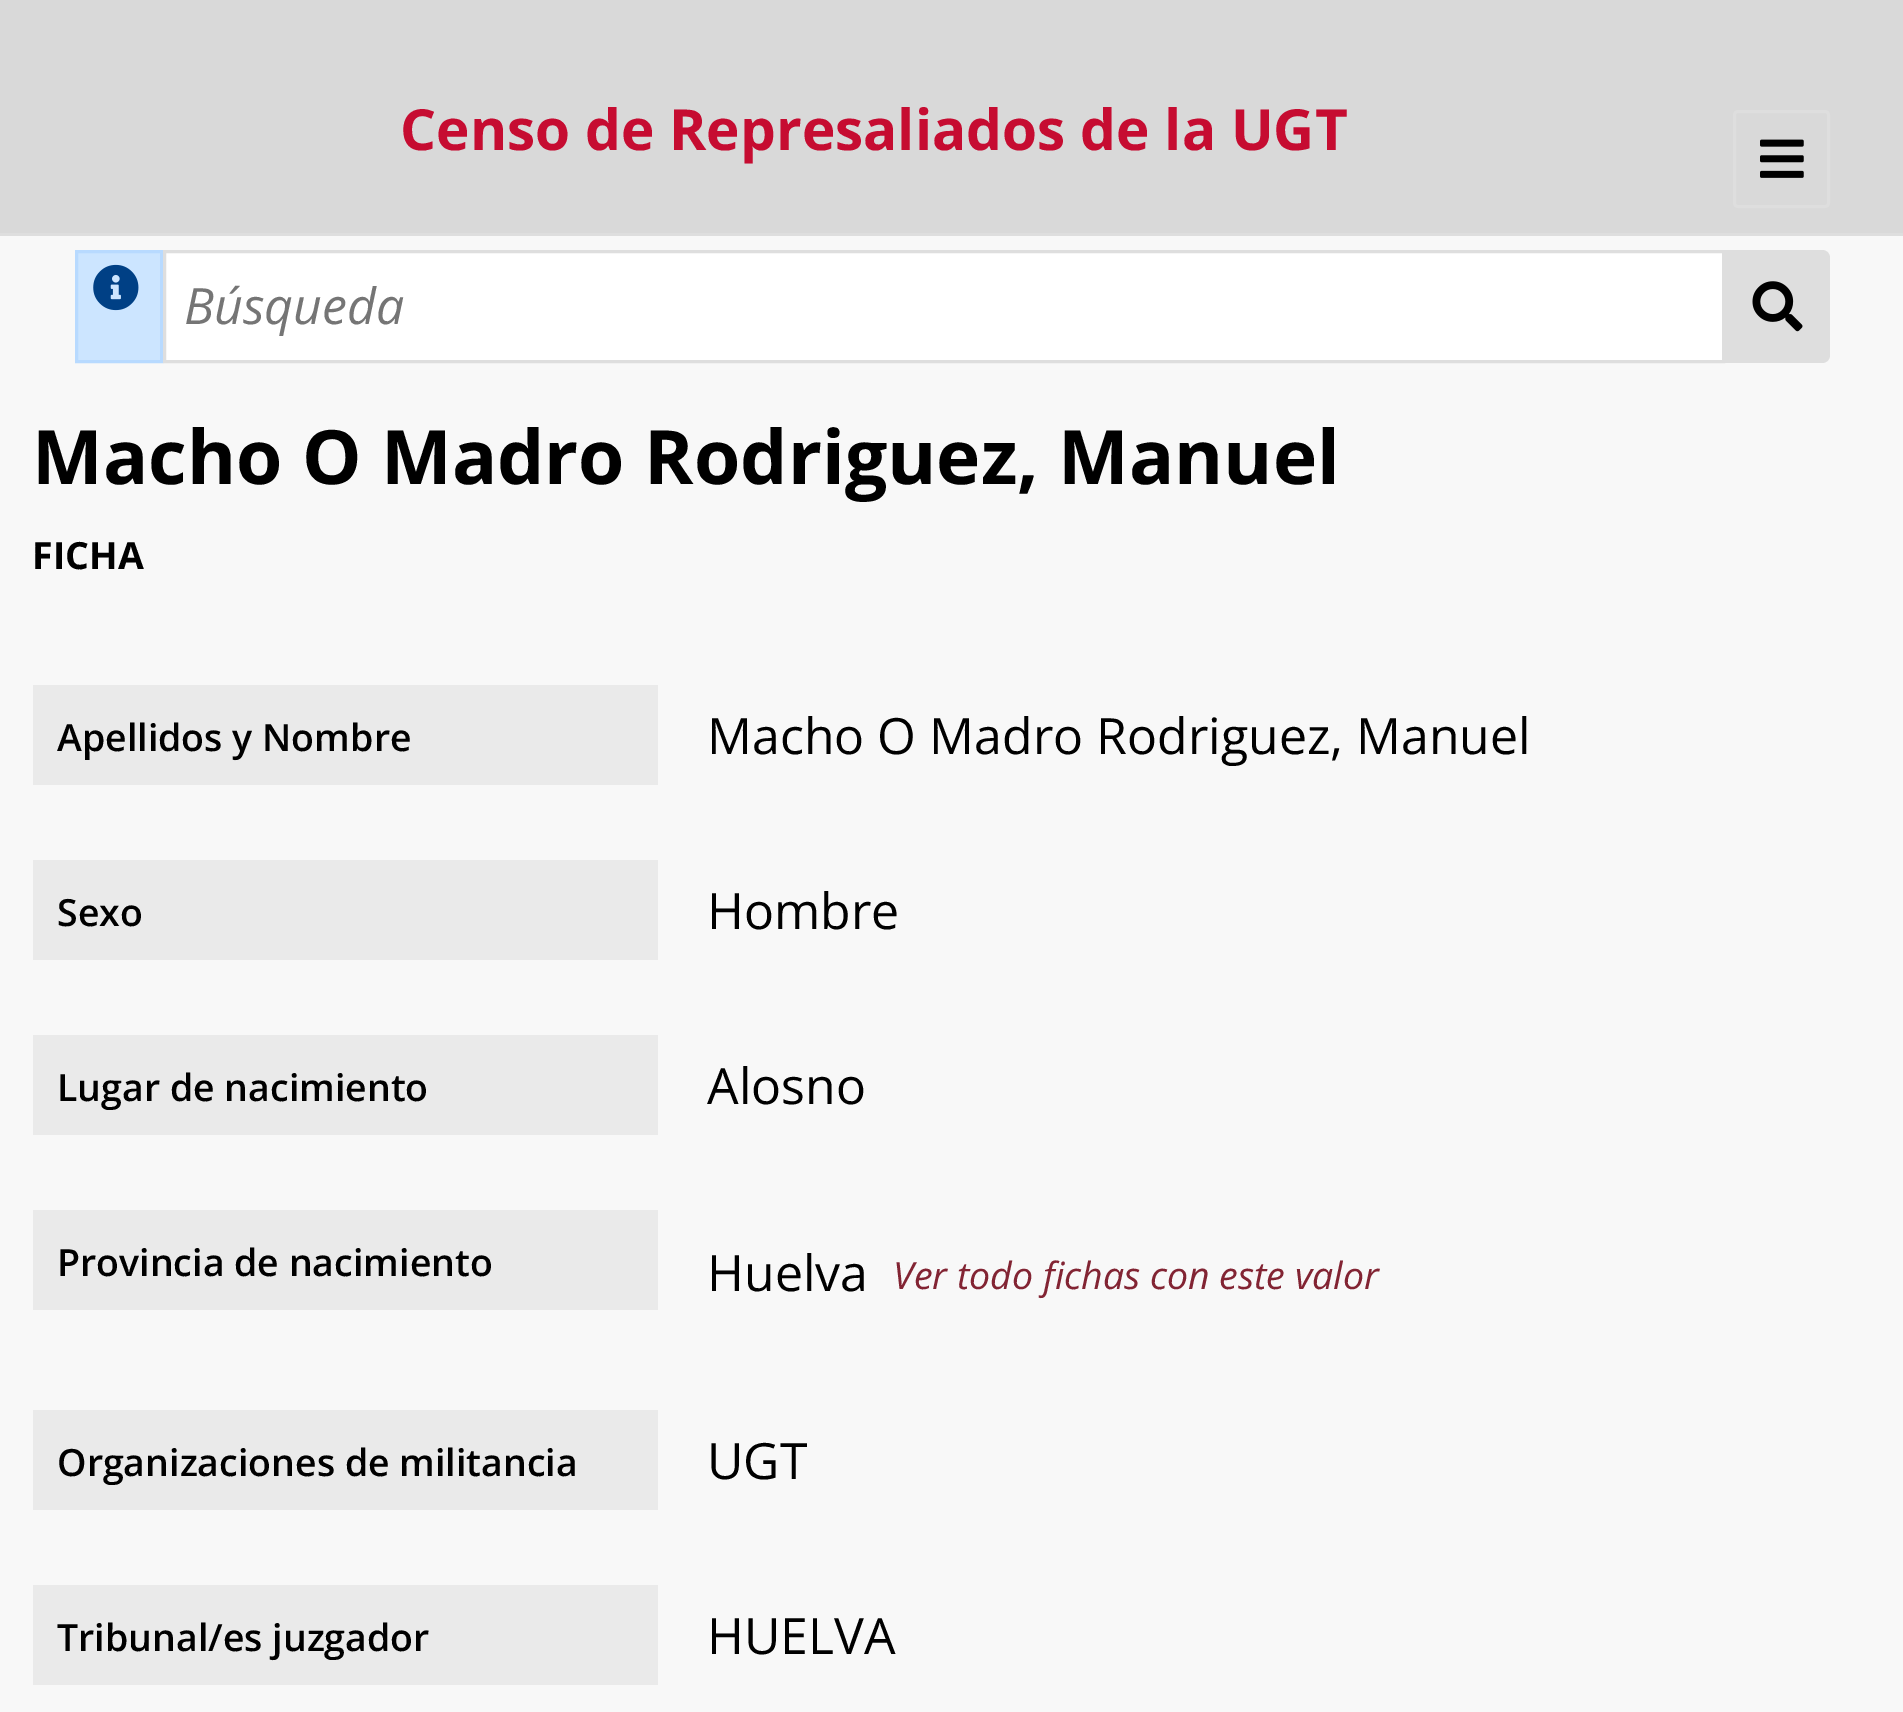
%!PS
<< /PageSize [1903 1712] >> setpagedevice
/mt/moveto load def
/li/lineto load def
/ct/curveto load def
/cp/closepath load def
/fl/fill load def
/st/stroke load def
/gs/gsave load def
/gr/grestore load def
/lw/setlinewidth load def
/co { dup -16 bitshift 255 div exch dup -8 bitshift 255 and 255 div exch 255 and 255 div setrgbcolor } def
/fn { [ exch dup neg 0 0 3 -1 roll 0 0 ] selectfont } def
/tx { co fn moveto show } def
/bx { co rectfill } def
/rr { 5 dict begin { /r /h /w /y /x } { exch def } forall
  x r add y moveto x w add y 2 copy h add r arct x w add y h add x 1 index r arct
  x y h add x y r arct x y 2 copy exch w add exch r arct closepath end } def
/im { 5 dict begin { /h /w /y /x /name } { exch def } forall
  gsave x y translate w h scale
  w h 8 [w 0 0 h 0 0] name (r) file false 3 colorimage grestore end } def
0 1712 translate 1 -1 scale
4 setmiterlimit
0 0 1903 1712 16#F8F8F8 bx
0 0 1903 233 16#D9D9D9 bx
0 233 1903 3 16#DEDEDE bx
3 lw
1734.5 111.5 94 95 3.5 rr st
(media/1.raw) 1760 139 44 39 im
16#CCE5FF co
76.5 251.5 mt 161.5 251.5 li 161.5 361.5 li 76.5 361.5 li cp gs fl gr
16#B8DAFF co
st
(media/2.raw) 93 264 46 47 im
16#FFFFFF co
164.5 251.5 mt 1723.5 251.5 li 1723.5 361.5 li 164.5 361.5 li cp gs fl gr
16#DEDEDE co
st
1725 250 mt 1822 250 li 1826.5 250 1830 253.5 1830 258 ct 1830 355 li 1830 359.5 1826.5 363 1822 363 ct 1725 363 li cp fl
(media/3.raw) 1752 281 51 51 im
33 685 625 100 16#EAEAEA bx
33 860 625 100 16#EAEAEA bx
33 1035 625 100 16#EAEAEA bx
33 1210 625 100 16#EAEAEA bx
33 1410 625 100 16#EAEAEA bx
33 1585 625 100 16#EAEAEA bx
(Censo de Represaliados de la UGT) 400 150 /OpenSans-Bold 56.7 16#C60C31 tx
(Búsqueda) 184 324 /OpenSans-Italic 50 16#757575 tx
(Macho O Madro Rodriguez, Manuel) 32 484 /OpenSans-Bold 75 16#000000 tx
(FICHA) 32 569 /OpenSans-Bold 37.5 16#000000 tx
(Apellidos y Nombre) 57 751 /OpenSans-SemiBold 37.5 16#000000 tx
(Macho O Madro Rodriguez, Manuel) 707 754 /OpenSans-Regular 50 16#000000 tx
(Sexo) 57 926 /OpenSans-SemiBold 37.5 16#000000 tx
(Hombre) 707 929 /OpenSans-Regular 50 16#000000 tx
(Lugar de nacimiento) 57 1101 /OpenSans-SemiBold 37.5 16#000000 tx
(Alosno) 707 1104 /OpenSans-Regular 50 16#000000 tx
(Provincia de nacimiento) 57 1276 /OpenSans-SemiBold 37.5 16#000000 tx
(Huelva) 707 1291 /OpenSans-Regular 50 16#000000 tx
(Ver todo fichas con este valor) 893 1289 /OpenSans-Italic 37.5 16#822433 tx
(Organizaciones de militancia) 57 1476 /OpenSans-SemiBold 37.5 16#000000 tx
(UGT) 707 1479 /OpenSans-Regular 50 16#000000 tx
(Tribunal/es juzgador) 57 1651 /OpenSans-SemiBold 37.5 16#000000 tx
(HUELVA) 707 1654 /OpenSans-Regular 50 16#000000 tx
showpage
